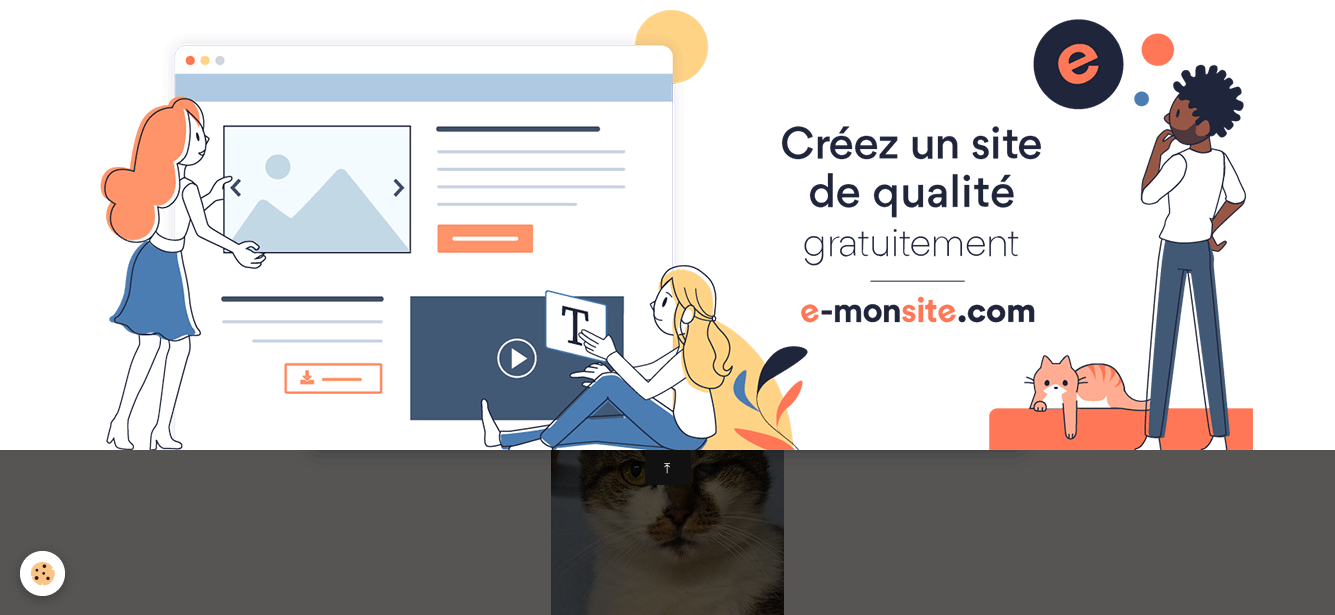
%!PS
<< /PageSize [1335 615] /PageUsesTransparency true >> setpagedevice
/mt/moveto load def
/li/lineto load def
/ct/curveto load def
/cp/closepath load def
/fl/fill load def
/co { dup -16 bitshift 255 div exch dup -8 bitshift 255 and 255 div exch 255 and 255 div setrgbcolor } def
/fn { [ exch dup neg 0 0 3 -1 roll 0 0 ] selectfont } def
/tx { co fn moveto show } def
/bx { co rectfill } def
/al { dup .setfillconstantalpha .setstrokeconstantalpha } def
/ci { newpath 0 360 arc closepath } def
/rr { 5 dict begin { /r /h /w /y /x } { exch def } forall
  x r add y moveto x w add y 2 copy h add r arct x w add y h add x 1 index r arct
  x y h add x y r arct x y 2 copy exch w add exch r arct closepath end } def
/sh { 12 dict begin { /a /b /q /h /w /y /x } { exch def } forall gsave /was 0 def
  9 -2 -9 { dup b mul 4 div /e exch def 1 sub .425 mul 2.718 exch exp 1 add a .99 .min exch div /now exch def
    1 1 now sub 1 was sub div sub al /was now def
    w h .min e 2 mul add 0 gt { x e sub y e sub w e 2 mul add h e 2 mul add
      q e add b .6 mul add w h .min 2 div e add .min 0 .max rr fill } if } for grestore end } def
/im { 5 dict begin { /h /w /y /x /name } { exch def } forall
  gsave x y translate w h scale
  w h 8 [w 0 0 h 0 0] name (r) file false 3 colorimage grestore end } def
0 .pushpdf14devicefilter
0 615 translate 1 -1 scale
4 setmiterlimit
0 0 1335 615 16#565554 bx
(media/1.raw) 551 450 233 165 im
16#000000 co
316 191 703 252 0 12.5 .5 sh
0 0 1335 450 16#FFFFFF bx
(media/2.raw) 100 10 1153 440 im
16#111111 co
645 450 mt 691 450 li 691 481 li 691 483 689 485 687 485 ct 649 485 li 647 485 645 483 645 481 ct cp fl
16#000000 co
20 554 45 45 22.5 5 .24 sh
16#FFFFFF co
42.5 573.5 22.5 ci fl
(media/3.raw) 30 561 25 25 im
(⤒) 664 473 /FreeSerif-Regular 14 16#FFFFFF tx
.poppdf14devicefilter showpage
